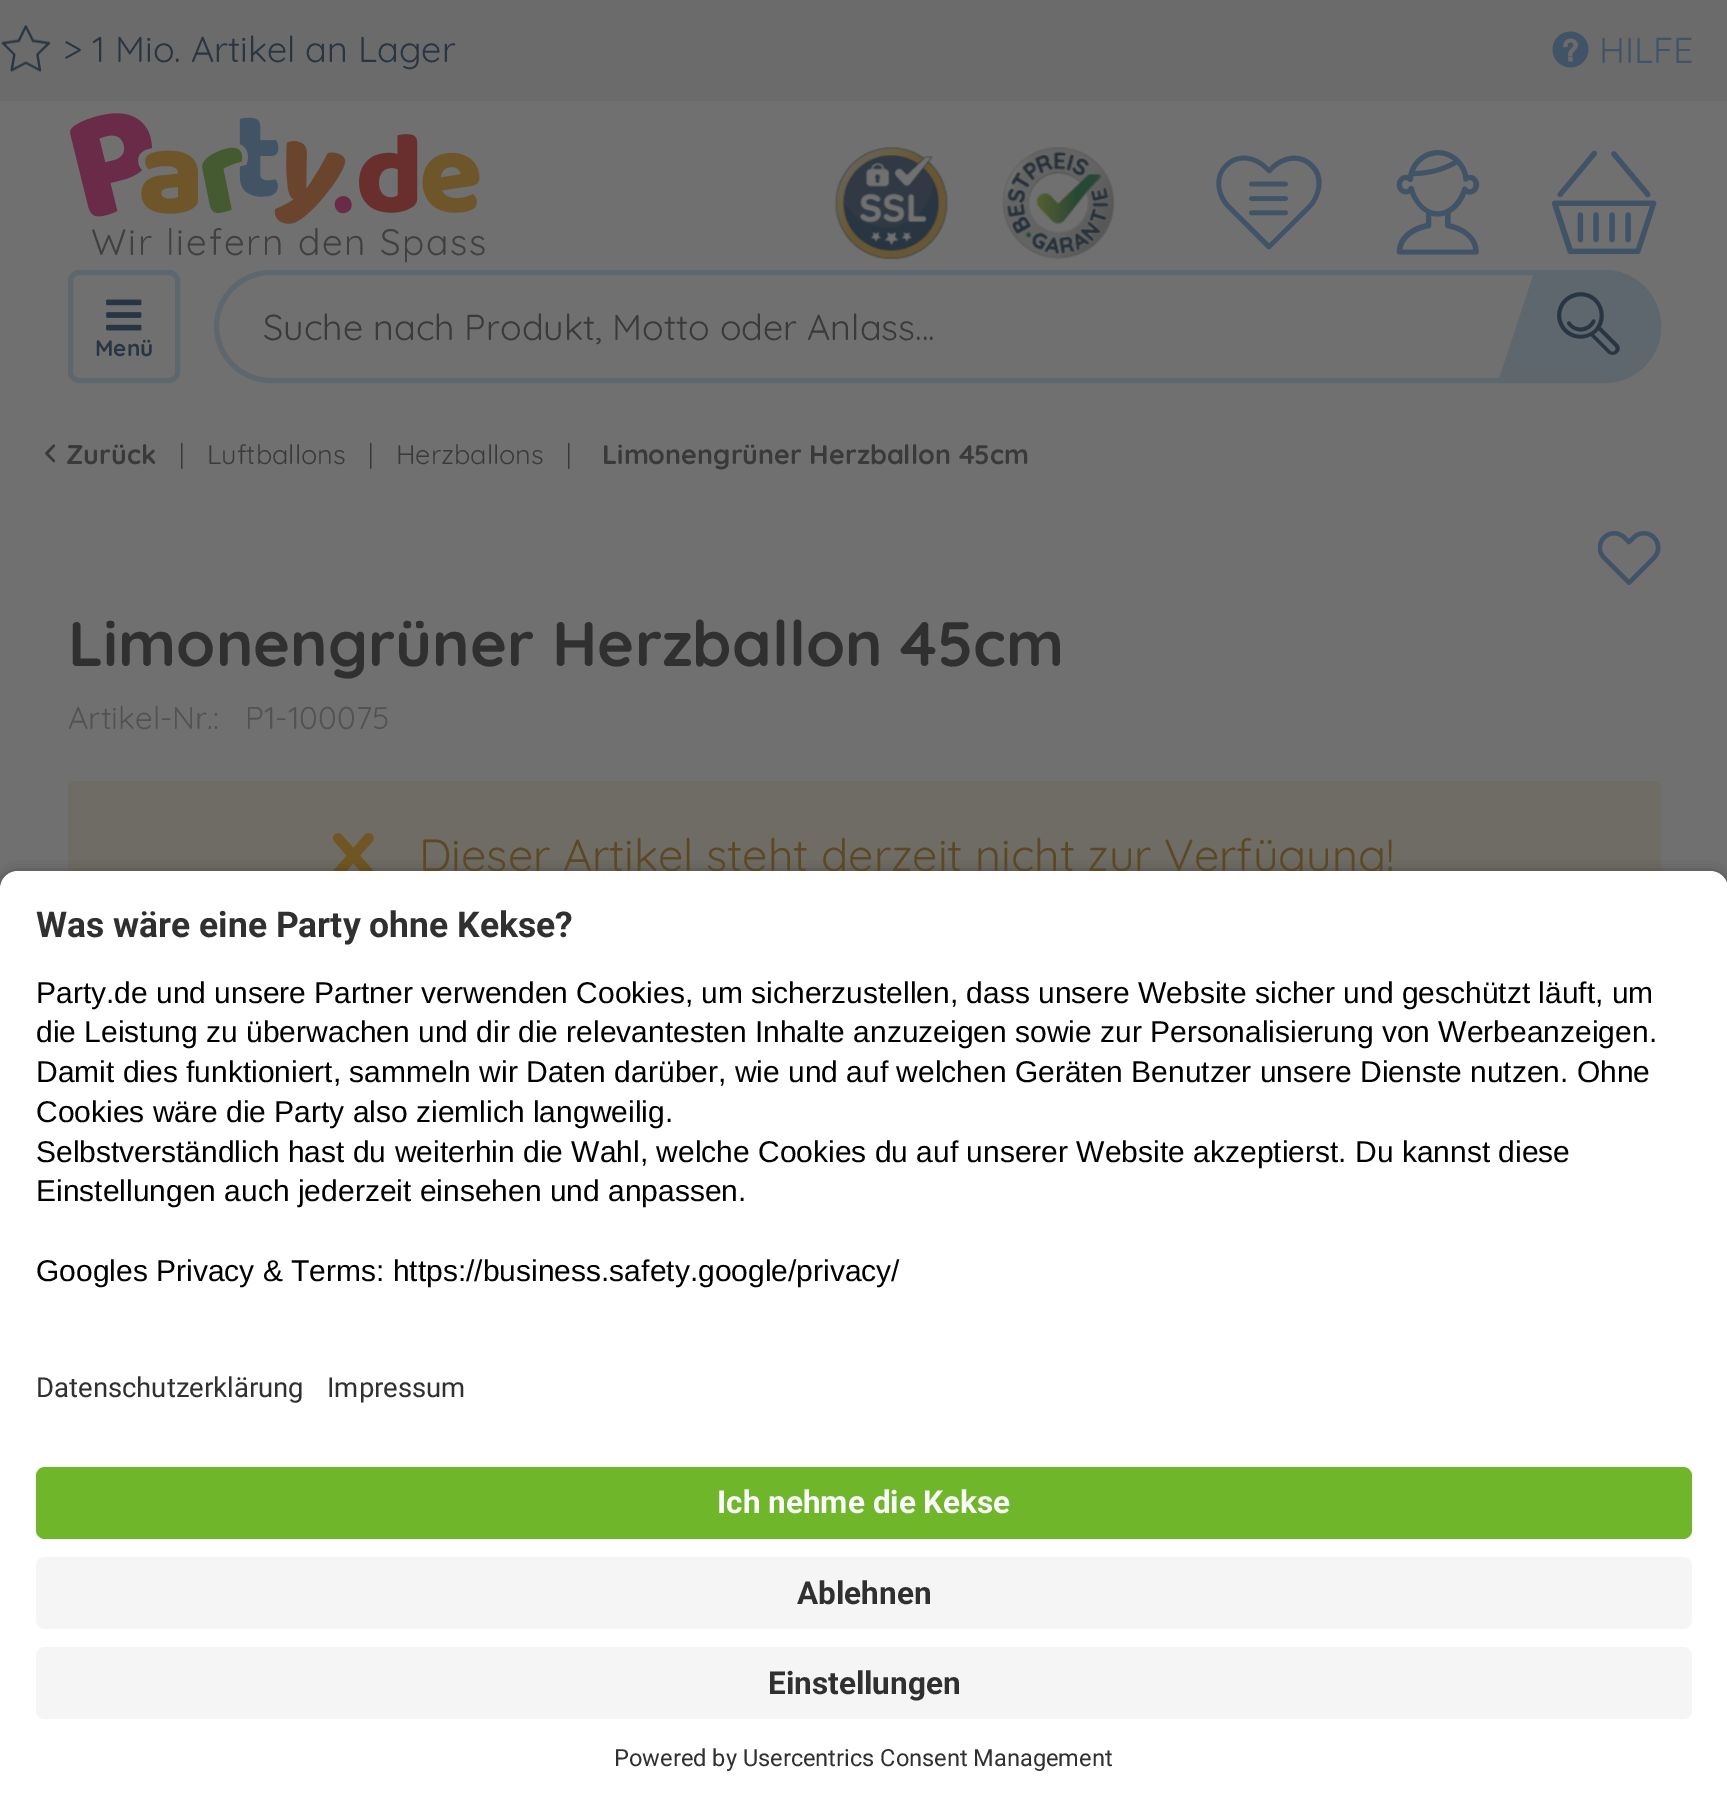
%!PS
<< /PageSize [1727 1809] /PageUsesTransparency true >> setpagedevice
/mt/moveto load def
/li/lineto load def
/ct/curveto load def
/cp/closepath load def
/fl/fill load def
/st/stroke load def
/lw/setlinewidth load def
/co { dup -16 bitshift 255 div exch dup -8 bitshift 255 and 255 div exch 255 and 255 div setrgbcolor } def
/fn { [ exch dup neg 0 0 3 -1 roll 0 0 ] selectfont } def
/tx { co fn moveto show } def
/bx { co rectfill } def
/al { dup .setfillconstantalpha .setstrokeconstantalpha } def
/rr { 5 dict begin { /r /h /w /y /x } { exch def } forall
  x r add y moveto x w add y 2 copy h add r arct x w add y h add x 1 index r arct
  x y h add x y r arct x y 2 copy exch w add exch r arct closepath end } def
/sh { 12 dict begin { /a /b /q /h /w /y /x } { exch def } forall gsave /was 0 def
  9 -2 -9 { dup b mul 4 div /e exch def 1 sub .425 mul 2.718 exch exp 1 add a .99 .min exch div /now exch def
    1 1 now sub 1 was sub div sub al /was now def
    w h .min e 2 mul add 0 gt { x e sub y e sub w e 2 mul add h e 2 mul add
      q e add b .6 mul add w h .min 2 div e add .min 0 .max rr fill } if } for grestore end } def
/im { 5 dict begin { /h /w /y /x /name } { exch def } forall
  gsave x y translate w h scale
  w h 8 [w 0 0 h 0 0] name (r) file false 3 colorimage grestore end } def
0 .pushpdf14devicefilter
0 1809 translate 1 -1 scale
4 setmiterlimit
0 0 1727 1809 16#707070 bx
0 0 1727 101 16#6B6B6B bx
(media/1.raw) 1 24 50 48 im
(media/2.raw) 1552 31 37 37 im
(media/3.raw) 70 113 410 111 im
(media/4.raw) 835 147 113 113 im
(media/5.raw) 1001 146 114 114 im
(media/6.raw) 1216 155 106 95 im
(media/7.raw) 1396 150 84 105 im
(media/8.raw) 1551 150 106 105 im
16#5E666E co
5 lw
216.5 272.5 1442 108 54 rr st
1582.5 270 mt 1604.5 270 li 1635.5 270 1661 295.5 1661 326.5 ct 1661 357.5 1635.5 383 1604.5 383 ct 1526 383 li 1526 326.5 li 1526 295.5 1551.5 270 1582.5 270 ct cp fl
1535 270 mt 1580 270 li 1543 382 li 1498 382 li cp fl
(media/9.raw) 1557 292 63 63 im
70.5 272.5 107 108 8.5 rr st
(media/10.raw) 106 299 36 32 im
(media/11.raw) 45 444 11 19 im
(media/12.raw) 1598 531 63 54 im
16#6F6C65 co
68 781 1593 146 7 rr fl
(media/13.raw) 333 833 41 38 im
16#000000 co
0 878 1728 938 18 8 .8 sh
0 1337 1727 472 16#FFFFFF bx
16#6FB62B co
36 1467 1656 72 9 rr fl
16#F5F5F5 co
36 1557 1656 72 9 rr fl
36 1647 1656 72 9 rr fl
(> 1 Mio. Artikel an Lager) 63 62 /Quicksand-Regular 36 16#293542 tx
(HILFE) 1599 63 /Quicksand-Regular 36 16#405367 tx
/Quicksand-Regular 36.75 fn
16#404040 co
91 255 mt .5 0 32 1.8 0 (Wir liefern den Spass) awidthshow
(Suche nach Produkt, Motto oder Anlass...) 263 340 /Quicksand-Regular 36 16#3A3A3A tx
(Menü) 95 356 /Quicksand-Bold 22.5 16#293542 tx
(Zurück) 66 464 /Quicksand-Bold 27 16#3A3A3A tx
(|) 179 464 /Quicksand-Regular 27 16#3A3A3A tx
(Luftballons) 207 464 /Quicksand-Regular 27 16#3A3A3A tx
(|) 368 464 /Quicksand-Regular 27 16#3A3A3A tx
(Herzballons) 396 464 /Quicksand-Regular 27 16#3A3A3A tx
(|) 566 464 /Quicksand-Regular 27 16#3A3A3A tx
(Limonengrüner Herzballon 45cm) 602 464 /Quicksand-Bold 27 16#3A3A3A tx
(Limonengrüner Herzballon 45cm) 68 666 /Quicksand-Bold 63 16#303030 tx
(Artikel-Nr.:) 68 729 /Quicksand-Regular 31.5 16#525252 tx
(P1-100075) 245 729 /Quicksand-Regular 31.5 16#525252 tx
(Dieser Artikel steht derzeit nicht zur Verfügung!) 419 871 /Quicksand-Regular 45 16#5B4824 tx
16#FFFFFF co
18 871 mt 1710 871 li 1720 871 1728 879 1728 889 ct 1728 1337 li 0 1337 li 0 889 li 0 879 8 871 18 871 ct cp fl
(Was wäre eine Party ohne Kekse?) 36 937 /Roboto-Bold 35.5 16#303030 tx
(Party.de und unsere Partner verwenden Cookies, um sicherzustellen, dass unsere Website sicher und geschützt läuft) 36 1003 /LiberationSans-Regular 30 16#000000 tx
(, um) 1595 1003 /LiberationSans-Regular 30 16#000000 tx
(die Leistung zu überwachen und dir die relevantesten Inhalte anzuzeigen sowie zur Personalisierung von Werbeanzeigen.) 36 1042 /LiberationSans-Regular 30 16#000000 tx
(Damit dies funktioniert, sammeln wir Daten darüber, wie und auf welchen Geräten Benutzer unsere Dienste nutzen. Ohne) 36 1082 /LiberationSans-Regular 30 16#000000 tx
(Cookies wäre die Party also ziemlich langweilig.) 36 1122 /LiberationSans-Regular 30 16#000000 tx
(Selbstverständlich hast du weiterhin die Wahl, welche Cookies du auf unserer Website akzeptierst. Du kannst diese) 36 1162 /LiberationSans-Regular 30 16#000000 tx
(Einstellungen auch jederzeit einsehen und anpassen.) 36 1201 /LiberationSans-Regular 30 16#000000 tx
(Googles Privacy & Terms: https://business.safety.google/privacy/) 36 1281 /LiberationSans-Regular 30 16#000000 tx
(Datenschutzerklärung) 36 1397 /Roboto-Regular 27.5 16#303030 tx
(Impressum) 327 1397 /Roboto-Regular 27.5 16#303030 tx
(Ich nehme die Kekse) 717 1513 /Roboto-Bold 31.5 16#FAFAFA tx
(Ablehnen) 797 1604 /Roboto-Bold 31.5 16#303030 tx
(Einstellungen) 768 1694 /Roboto-Bold 31.5 16#303030 tx
(Powered by Usercentrics Consent Management) 614 1766 /Roboto-Regular 23.6 16#303030 tx
.poppdf14devicefilter showpage
